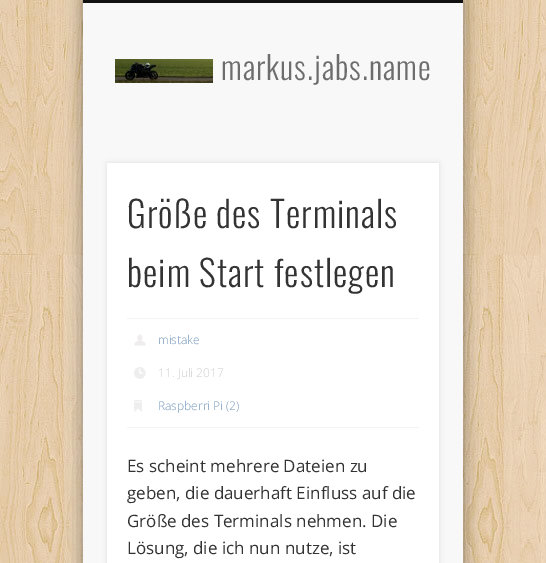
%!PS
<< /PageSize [546 563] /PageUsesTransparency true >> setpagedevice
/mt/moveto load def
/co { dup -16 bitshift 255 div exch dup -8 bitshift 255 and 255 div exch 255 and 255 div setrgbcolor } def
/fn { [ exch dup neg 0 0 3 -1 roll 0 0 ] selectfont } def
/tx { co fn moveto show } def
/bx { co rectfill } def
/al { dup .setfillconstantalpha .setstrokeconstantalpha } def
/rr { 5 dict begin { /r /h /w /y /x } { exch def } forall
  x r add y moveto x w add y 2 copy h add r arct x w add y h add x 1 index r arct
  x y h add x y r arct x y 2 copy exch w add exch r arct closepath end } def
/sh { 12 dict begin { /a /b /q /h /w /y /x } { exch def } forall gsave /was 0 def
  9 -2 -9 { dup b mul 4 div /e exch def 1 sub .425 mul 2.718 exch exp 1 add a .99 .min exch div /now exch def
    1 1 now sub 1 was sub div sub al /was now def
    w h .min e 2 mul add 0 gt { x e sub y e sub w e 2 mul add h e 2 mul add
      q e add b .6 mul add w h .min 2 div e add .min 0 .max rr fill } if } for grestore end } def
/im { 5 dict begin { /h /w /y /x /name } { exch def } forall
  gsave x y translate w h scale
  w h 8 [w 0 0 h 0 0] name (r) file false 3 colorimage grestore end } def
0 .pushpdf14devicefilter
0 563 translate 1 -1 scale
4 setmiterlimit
0 0 546 563 16#FFFFFF bx
(media/1.raw) 0 0 546 563 im
16#000000 co
83 0 380 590 0 9 .4 sh
83 3 380 560 16#F8F8F8 bx
83 0 380 3 16#111111 bx
(media/2.raw) 115 59 98 24 im
16#000000 co
107 163 332 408 0 2.5 .1 sh
107 163 332 400 16#FFFFFF bx
127 318 292 1 16#F4F4F4 bx
127 427 292 1 16#F4F4F4 bx
(media/3.raw) 134 334 12 12 im
(media/4.raw) 134 367 12 12 im
(media/5.raw) 134 400 8 12 im
/Oswald-Light 32 fn
16#6D6D6D co
221 80 mt 1 0 (markus.jabs.name) ashow
/Oswald-Light 36 fn
16#333333 co
127 228 mt 1 0 (Größe des Terminals) ashow
127 287 mt 1 0 (beim Start festlegen) ashow
(mistake) 158 344 /OpenSans-Light 12 16#7597B9 tx
(11. Juli 2017) 158 377 /OpenSans-Light 12 16#CCCCCC tx
(Raspberri Pi \(2\)) 158 410 /OpenSans-Light 12 16#7597B9 tx
(Es scheint mehrere Dateien zu) 127 472 /OpenSans-Regular 17 16#333333 tx
(geben, die dauerhaft Einfluss auf die) 127 499 /OpenSans-Regular 17 16#333333 tx
(Größe des Terminals nehmen. Die) 127 527 /OpenSans-Regular 17 16#333333 tx
(Lösung, die ich nun nutze, ist) 127 554 /OpenSans-Regular 17 16#333333 tx
.poppdf14devicefilter showpage
